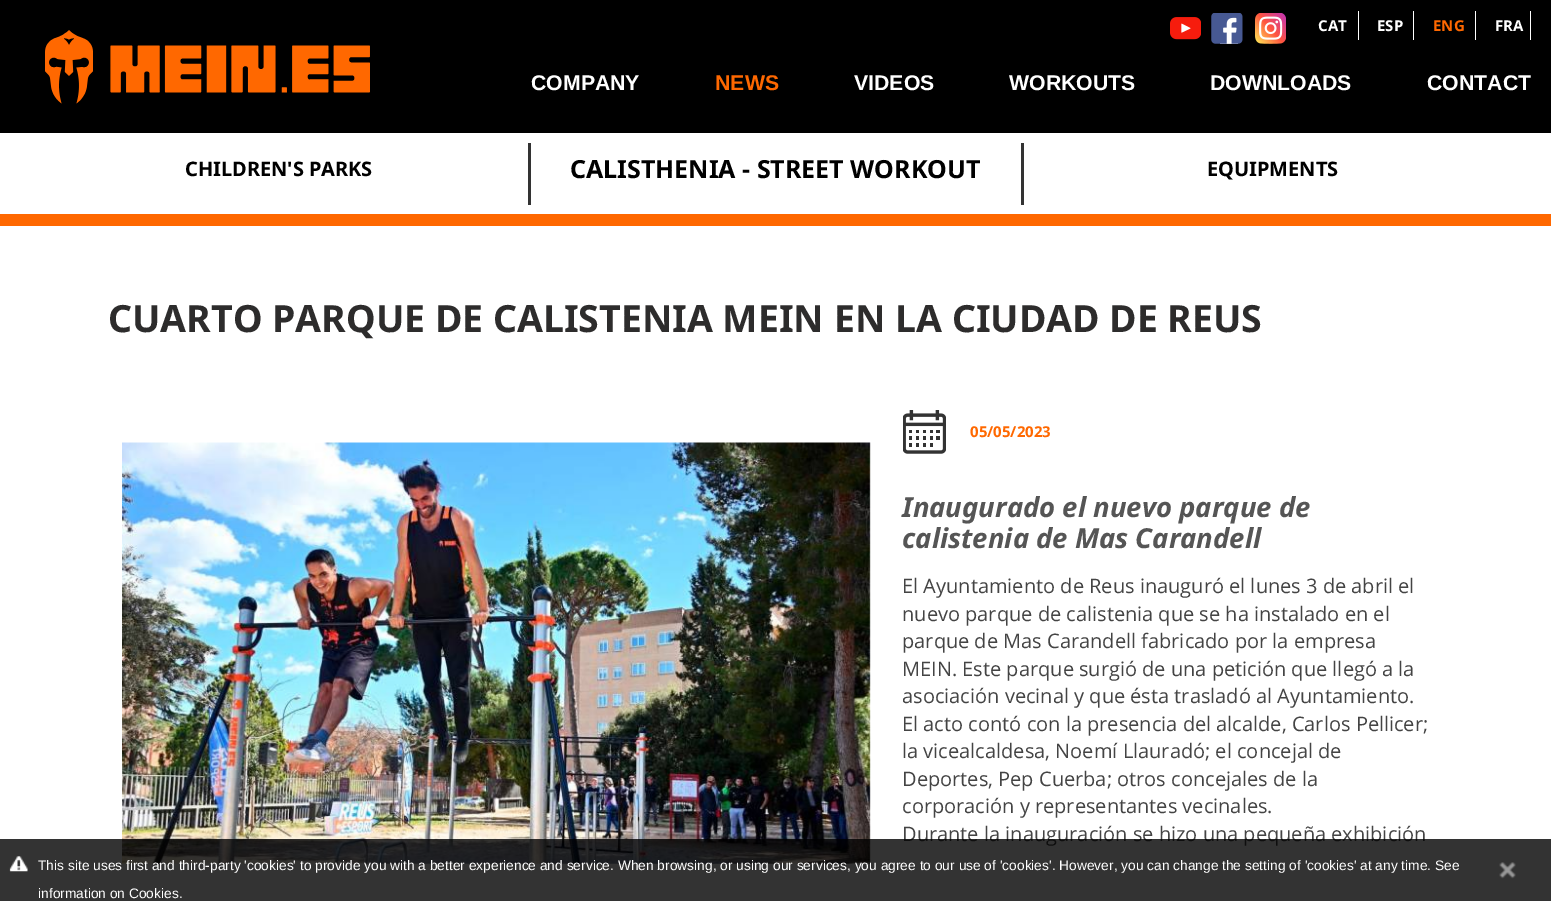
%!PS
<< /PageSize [1551 901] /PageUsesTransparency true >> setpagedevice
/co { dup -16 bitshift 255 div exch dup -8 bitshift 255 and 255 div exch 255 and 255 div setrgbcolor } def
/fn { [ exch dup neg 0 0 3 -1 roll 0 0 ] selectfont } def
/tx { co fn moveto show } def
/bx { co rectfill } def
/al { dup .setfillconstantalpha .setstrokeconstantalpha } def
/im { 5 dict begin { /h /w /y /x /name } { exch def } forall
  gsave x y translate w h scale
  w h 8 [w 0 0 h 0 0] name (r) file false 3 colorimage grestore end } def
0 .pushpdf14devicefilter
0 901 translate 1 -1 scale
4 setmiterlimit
0 0 1551 901 16#FFFFFF bx
0 0 1551 133 16#000000 bx
(media/1.raw) 45 30 325 74 im
(media/2.raw) 1170 17 31 23 im
(media/3.raw) 1211 13 32 31 im
(media/4.raw) 1255 13 31 31 im
1358 11 1 29 16#FFFFFF bx
1413 11 1 29 16#FFFFFF bx
1475 11 1 29 16#FFFFFF bx
1530 11 1 29 16#FFFFFF bx
1021 143 3 62 16#333333 bx
528 143 3 62 16#333333 bx
0 214 1551 12 16#FF6800 bx
(media/5.raw) 122 442 749 422 im
(media/6.raw) 903 410 43 44 im
(CAT) 1318 31 /OpenSans-Bold 15 16#FFFFFF tx
(ESP) 1377 31 /OpenSans-Bold 15 16#FFFFFF tx
(ENG) 1433 31 /OpenSans-Bold 15 16#FF6800 tx
(FRA) 1495 31 /OpenSans-Bold 15 16#FFFFFF tx
(COMPANY) 531 90 /LiberationSans-Bold 21.25 16#FFFFFF tx
(NEWS) 715 90 /LiberationSans-Bold 21.25 16#FF6800 tx
(VIDEOS) 854 90 /LiberationSans-Bold 21.25 16#FFFFFF tx
(WORKOUTS) 1009 90 /LiberationSans-Bold 21.25 16#FFFFFF tx
(DOWNLOADS) 1210 90 /LiberationSans-Bold 21.25 16#FFFFFF tx
(CONTACT) 1427 90 /LiberationSans-Bold 21.25 16#FFFFFF tx
(CHILDREN'S PARKS) 185 176 /NotoSans-Bold 20 16#000000 tx
(CALISTHENIA - STREET WORKOUT) 570 178 /NotoSans-Bold 25 16#000000 tx
(EQUIPMENTS) 1207 176 /NotoSans-Bold 20 16#000000 tx
(CUARTO PARQUE DE CALISTENIA MEIN EN LA CIUDAD DE REUS) 108 332 /NotoSans-Bold 37.5 16#2D2C2C tx
(05/05/2023) 970 437 /OpenSans-Bold 15 16#FF6800 tx
(Inaugurado el nuevo parque de) 902 517 /NotoSans-BoldItalic 27.5 16#555555 tx
(calistenia de Mas Carandell) 902 548 /NotoSans-BoldItalic 27.5 16#555555 tx
(El Ayuntamiento de Reus inauguró el lunes 3 de abril el) 902 593 /OpenSans-Regular 20 16#444444 tx
(nuevo parque de calistenia que se ha instalado en el) 902 621 /OpenSans-Regular 20 16#444444 tx
(parque de Mas Carandell fabricado por la empresa) 902 648 /OpenSans-Regular 20 16#444444 tx
(MEIN. Este parque surgió de una petición que llegó a la) 902 676 /OpenSans-Regular 20 16#444444 tx
(asociación vecinal y que ésta trasladó al Ayuntamiento.) 902 703 /OpenSans-Regular 20 16#444444 tx
(El acto contó con la presencia del alcalde, Carlos Pellicer;) 902 731 /OpenSans-Regular 20 16#444444 tx
(la vicealcaldesa, Noemí Llauradó; el concejal de) 902 758 /OpenSans-Regular 20 16#444444 tx
(Deportes, Pep Cuerba; otros concejales de la) 902 786 /OpenSans-Regular 20 16#444444 tx
(corporación y representantes vecinales.) 902 813 /OpenSans-Regular 20 16#444444 tx
(Durante la inauguración se hizo una pequeña exhibición) 902 841 /OpenSans-Regular 20 16#444444 tx
0.8 al
0 839 1551 62 16#000000 bx
1 al
(media/7.raw) 9 856 19 16 im
(This site uses first and third-party 'cookies' to provide you with a better experience and service. When browsing, or using our services, you agree to our use of 'cookies'. However, you can change the setting of 'cookies' at any time. See) 38 870 /LiberationSans-Regular 13.75 16#FFFFFF tx
(media/8.raw) 1499 862 17 17 im
(information on Cookies.) 38 898 /LiberationSans-Regular 13.75 16#FFFFFF tx
.poppdf14devicefilter showpage
